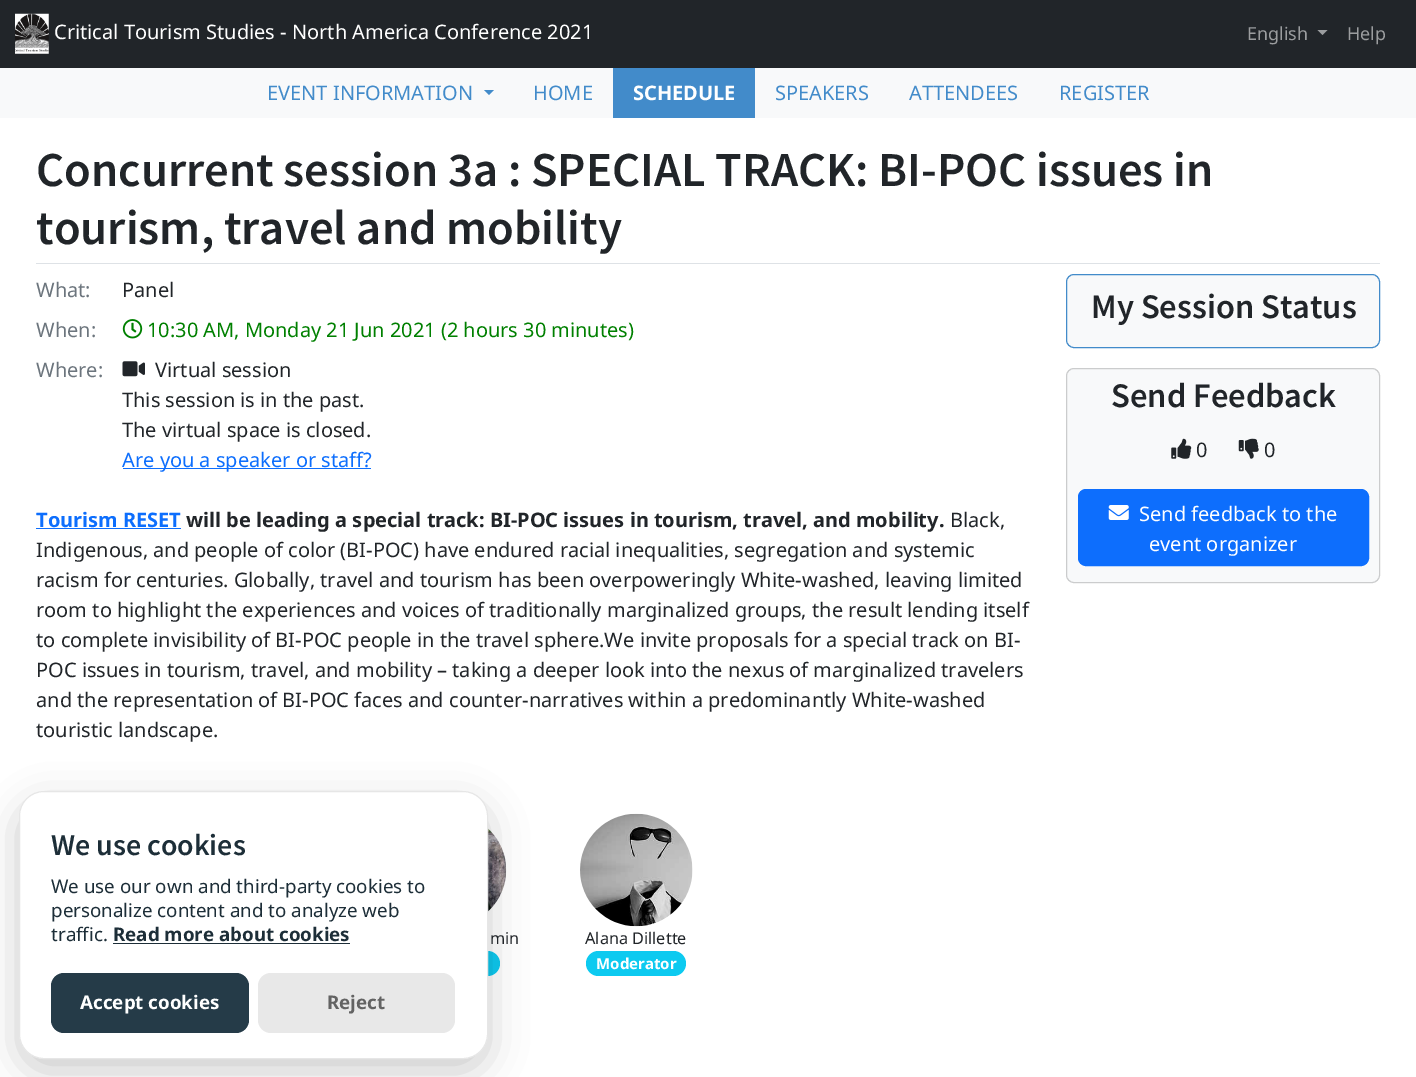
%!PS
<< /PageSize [1416 1077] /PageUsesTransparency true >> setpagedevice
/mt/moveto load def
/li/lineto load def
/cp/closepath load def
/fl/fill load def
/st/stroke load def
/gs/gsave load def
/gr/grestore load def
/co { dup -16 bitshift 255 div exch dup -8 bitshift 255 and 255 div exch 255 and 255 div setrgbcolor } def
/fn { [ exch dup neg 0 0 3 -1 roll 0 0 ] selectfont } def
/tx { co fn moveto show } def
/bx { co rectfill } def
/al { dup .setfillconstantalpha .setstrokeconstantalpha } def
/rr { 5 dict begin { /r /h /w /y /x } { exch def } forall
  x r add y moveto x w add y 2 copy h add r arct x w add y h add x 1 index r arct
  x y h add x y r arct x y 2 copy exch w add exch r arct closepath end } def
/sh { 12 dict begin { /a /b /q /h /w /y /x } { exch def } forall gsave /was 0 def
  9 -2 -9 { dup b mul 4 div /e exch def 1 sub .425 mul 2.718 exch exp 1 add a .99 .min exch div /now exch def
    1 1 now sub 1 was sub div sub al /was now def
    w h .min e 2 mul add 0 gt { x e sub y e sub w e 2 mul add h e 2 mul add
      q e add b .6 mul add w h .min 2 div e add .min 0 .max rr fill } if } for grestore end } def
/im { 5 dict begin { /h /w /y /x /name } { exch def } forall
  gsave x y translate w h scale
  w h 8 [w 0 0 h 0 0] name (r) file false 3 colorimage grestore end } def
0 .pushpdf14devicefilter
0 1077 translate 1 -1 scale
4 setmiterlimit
0 0 1416 1077 16#FFFFFF bx
0 0 1416 68 16#212529 bx
(media/1.raw) 15 13 34 41 im
16#9B9D9F co
1317.5 30 mt 1327.5 30 li 1322.5 35 li cp fl
0 68 1416 50 16#F8F9FA bx
16#428BCA co
484 90 mt 494 90 li 489 95 li cp fl
613 68 142 50 16#428BCA bx
36 263 1344 1 16#DEE2E6 bx
(media/2.raw) 122 319 21 20 im
(media/3.raw) 122 361 23 16 im
123 468 248 1 16#0D6EFD bx
36 528 145 1 16#0D6EFD bx
(media/4.raw) 488 828 19 84 im
16#0DCAF0 co
400 951 100 25 12.5 rr fl
(media/5.raw) 580 813 113 114 im
586 951 100 25 12.5 rr fl
16#F8F9FA co
1066.5 274.5 313 73 7.5 rr gs fl gr
16#428BCA co
st
16#F8F9FA co
1066 368 314 215 8 rr fl
0.18 al
16#000000 co
1066.5 368.5 313 214 7.5 rr st
1 al
(media/6.raw) 1171 438 21 21 im
(media/7.raw) 1238 438 21 21 im
16#0D6EFD co
1078.5 489.5 290 76 7.5 rr gs fl gr
st
(media/8.raw) 1108 505 21 15 im
16#020203 co
19 804 469 267 25 19 .2 sh
16#FFFFFF co
19.5 791.5 468 267 24.5 rr gs fl gr
16#E6E6E6 co
st
113 943 237 1 16#1D2E38 bx
16#253B48 co
51 973 198 60 13 rr fl
16#E8E8E8 co
258 973 197 60 13 rr fl
(Critical Tourism Studies - North America Conference 2021) 54 39 /NotoSans-Regular 20 16#FFFFFF tx
(English) 1247 40 /NotoSans-Regular 18 16#9B9D9F tx
(Help) 1347 40 /NotoSans-Regular 18 16#9B9D9F tx
(EVENT INFORMATION) 267 100 /NotoSans-Regular 20 16#428BCA tx
(HOME) 533 100 /NotoSans-Regular 20 16#428BCA tx
(SCHEDULE) 633 100 /NotoSans-Bold 20 16#FFFFFF tx
(SPEAKERS) 775 100 /NotoSans-Regular 20 16#428BCA tx
(ATTENDEES) 909 100 /NotoSans-Regular 20 16#428BCA tx
(REGISTER) 1059 100 /NotoSans-Regular 20 16#428BCA tx
(Concurrent session 3a : SPECIAL TRACK: BI-POC issues in) 36 186 /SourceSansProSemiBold-SemiBold 48.75 16#212529 tx
(tourism, travel and mobility) 36 244 /SourceSansProSemiBold-SemiBold 48.75 16#212529 tx
(What:) 36 297 /NotoSans-Regular 20 16#6C757D tx
(Panel) 122 297 /NotoSans-Regular 20 16#212529 tx
(When:) 36 337 /NotoSans-Regular 20 16#6C757D tx
(10:30 AM, Monday 21 Jun 2021 \(2 hours 30 minutes\)) 147 337 /NotoSans-Regular 20 16#008000 tx
(Where:) 36 377 /NotoSans-Regular 20 16#6C757D tx
(Virtual session) 155 377 /NotoSans-Regular 20 16#212529 tx
(This session is in the past.) 122 407 /NotoSans-Regular 20 16#212529 tx
(The virtual space is closed.) 122 437 /NotoSans-Regular 20 16#212529 tx
(Are you a speaker or staff?) 122 467 /NotoSans-Regular 20 16#0D6EFD tx
(Tourism RESET) 36 527 /NotoSans-Bold 20 16#0D6EFD tx
(will be leading a special track: BI-POC issues in tourism, travel, and mobility.) 186 527 /NotoSans-Bold 20 16#212529 tx
(Black,) 950 527 /NotoSans-Regular 20 16#212529 tx
(Indigenous, and people of color \(BI-POC\) have endured racial inequalities, segregation and systemic) 36 557 /NotoSans-Regular 20 16#212529 tx
(racism for centuries. Globally, travel and tourism has been overpoweringly White-washed, leaving limited) 36 587 /NotoSans-Regular 20 16#212529 tx
(room to highlight the experiences and voices of traditionally marginalized groups, the result lending itself) 36 617 /NotoSans-Regular 20 16#212529 tx
(to complete invisibility of BI-POC people in the travel sphere.We invite proposals for a special track on BI-) 36 647 /NotoSans-Regular 20 16#212529 tx
(POC issues in tourism, travel, and mobility – taking a deeper look into the nexus of marginalized travelers) 36 677 /NotoSans-Regular 20 16#212529 tx
(and the representation of BI-POC faces and counter-narratives within a predominantly White-washed) 36 707 /NotoSans-Regular 20 16#212529 tx
(touristic landscape.) 36 737 /NotoSans-Regular 20 16#212529 tx
(min) 490 944 /NotoSans-Regular 16.25 16#212529 tx
(Alana Dillette) 585 944 /NotoSans-Regular 16.25 16#212529 tx
(Moderator) 596 969 /NotoSans-Bold 15 16#FFFFFF tx
(My Session Status) 1091 318 /SourceSansProSemiBold-SemiBold 34.5 16#212529 tx
(Send Feedback) 1111 407 /SourceSansProSemiBold-SemiBold 34.5 16#212529 tx
(0) 1196 457 /NotoSans-Regular 20 16#212529 tx
(0) 1264 457 /NotoSans-Regular 20 16#212529 tx
(Send feedback to the) 1139 521 /NotoSans-Regular 20 16#FFFFFF tx
(event organizer) 1149 551 /NotoSans-Regular 20 16#FFFFFF tx
(We use cookies) 51 855 /SourceSansProSemiBold-SemiBold 30 16#1D2E38 tx
(We use our own and third-party cookies to) 51 893 /NotoSans-Regular 18.75 16#1D2E38 tx
(personalize content and to analyze web) 51 917 /NotoSans-Regular 18.75 16#1D2E38 tx
(traffic.) 51 941 /NotoSans-Regular 18.75 16#1D2E38 tx
(Read more about cookies) 113 941 /NotoSans-Bold 18.75 16#1D2E38 tx
(Accept cookies) 80 1009 /NotoSans-Bold 18.75 16#FFFFFF tx
(Reject) 327 1009 /NotoSans-Bold 18.75 16#636363 tx
.poppdf14devicefilter showpage
